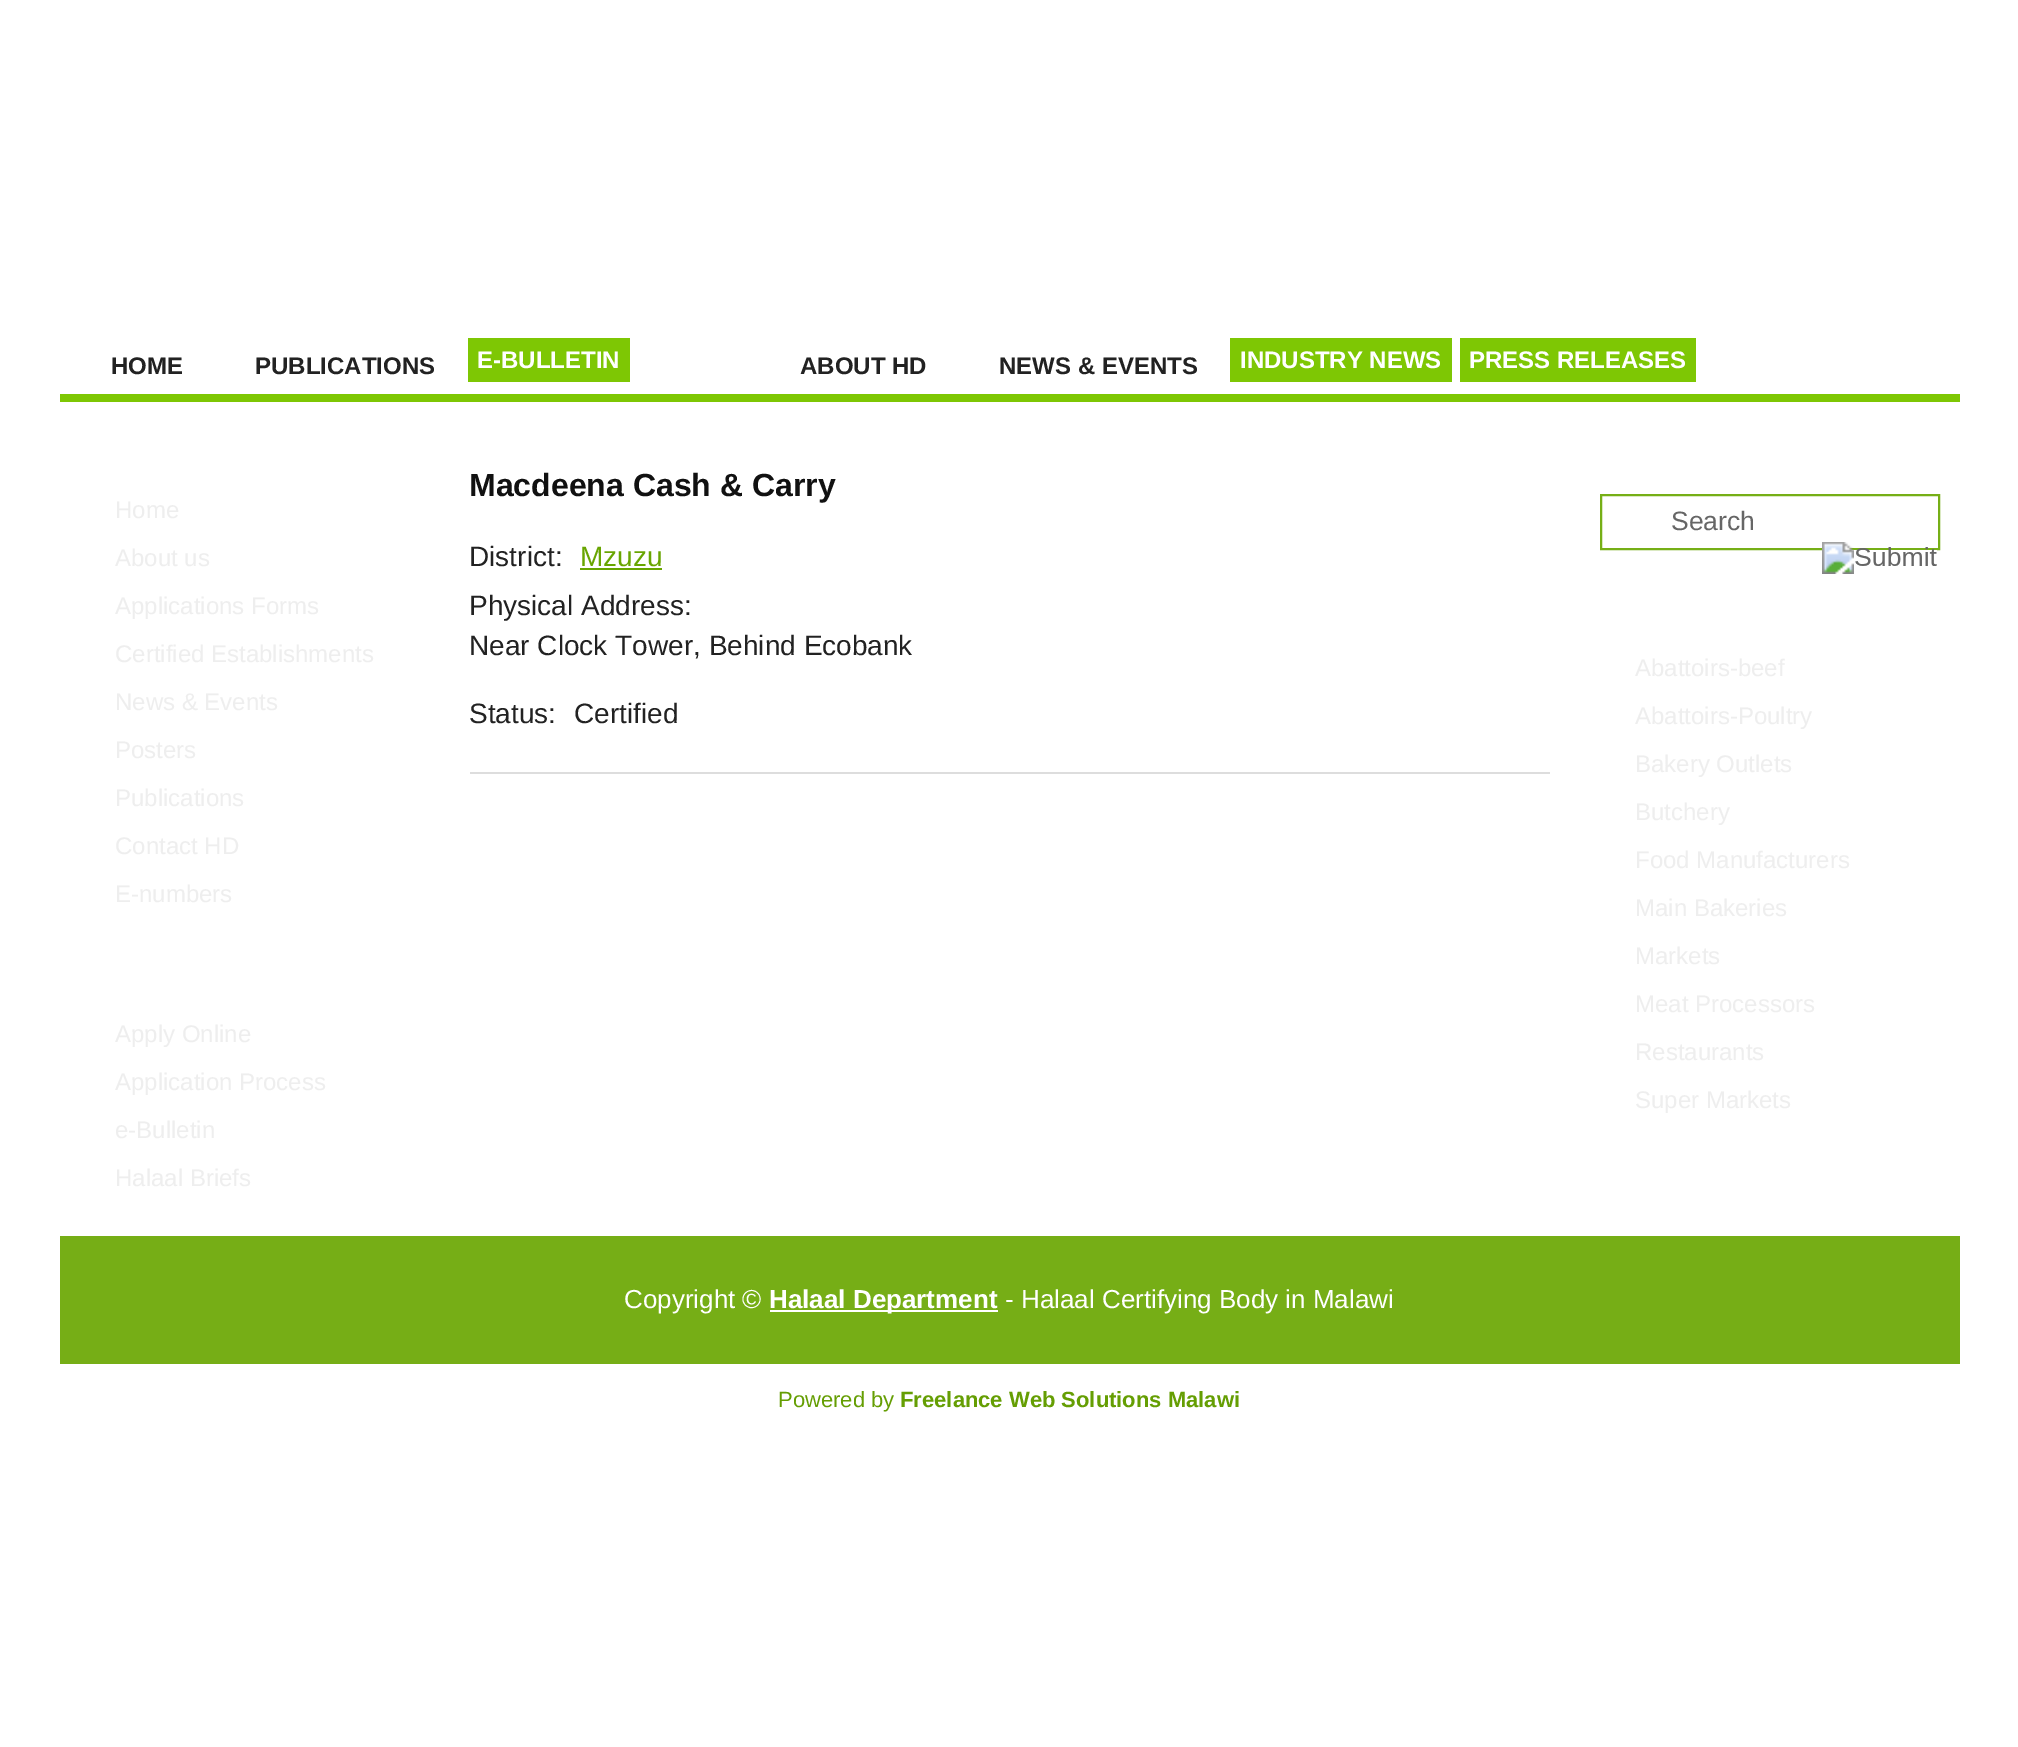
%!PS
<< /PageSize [2018 1747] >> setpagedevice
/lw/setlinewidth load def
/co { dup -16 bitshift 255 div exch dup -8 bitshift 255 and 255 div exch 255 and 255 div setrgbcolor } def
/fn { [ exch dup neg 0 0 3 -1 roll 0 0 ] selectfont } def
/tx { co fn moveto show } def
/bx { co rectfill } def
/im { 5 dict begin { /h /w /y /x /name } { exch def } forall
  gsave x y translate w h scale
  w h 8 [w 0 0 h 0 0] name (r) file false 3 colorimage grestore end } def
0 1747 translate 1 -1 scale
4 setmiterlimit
0 0 2018 1747 16#FFFFFF bx
60 394 1900 8 16#7EC704 bx
468 338 162 44 16#7EC704 bx
1230 338 222 44 16#7EC704 bx
1460 338 236 44 16#7EC704 bx
470 772 1080 2 16#DDDDDD bx
580 568 82 2 16#68A501 bx
16#76AF16 co
2 lw
1601 495 338 54 rectstroke
(media/1.raw) 1822 542 115 32 im
60 1236 1900 128 16#76AE16 bx
770 1310 228 2 16#FFFFFF bx
(HOME) 111 374 /LiberationSans-Bold 24 16#222222 tx
(PUBLICATIONS) 255 374 /LiberationSans-Bold 24 16#222222 tx
(E-BULLETIN) 477 368 /LiberationSans-Bold 24 16#FFFFFF tx
(ABOUT HD) 800 374 /LiberationSans-Bold 24 16#222222 tx
(NEWS & EVENTS) 999 374 /LiberationSans-Bold 24 16#222222 tx
(INDUSTRY NEWS) 1240 368 /LiberationSans-Bold 24 16#FFFFFF tx
(PRESS RELEASES) 1469 368 /LiberationSans-Bold 24 16#FFFFFF tx
(Home) 115 518 /LiberationSans-Regular 24 16#EEEEEE tx
(About us) 115 566 /LiberationSans-Regular 24 16#EEEEEE tx
(Applications Forms) 115 614 /LiberationSans-Regular 24 16#EEEEEE tx
(Certified Establishments) 115 662 /LiberationSans-Regular 24 16#EEEEEE tx
(News & Events) 115 710 /LiberationSans-Regular 24 16#EEEEEE tx
(Posters) 115 758 /LiberationSans-Regular 24 16#EEEEEE tx
(Publications) 115 806 /LiberationSans-Regular 24 16#EEEEEE tx
(Contact HD) 115 854 /LiberationSans-Regular 24 16#EEEEEE tx
(E-numbers) 115 902 /LiberationSans-Regular 24 16#EEEEEE tx
(Apply Online) 115 1042 /LiberationSans-Regular 24 16#EEEEEE tx
(Application Process) 115 1090 /LiberationSans-Regular 24 16#EEEEEE tx
(e-Bulletin) 115 1138 /LiberationSans-Regular 24 16#EEEEEE tx
(Halaal Briefs) 115 1186 /LiberationSans-Regular 24 16#EEEEEE tx
(Macdeena Cash & Carry) 469 496 /LiberationSans-Bold 32 16#111111 tx
(District:) 469 566 /LiberationSans-Regular 28 16#222222 tx
(Mzuzu) 580 566 /LiberationSans-Regular 28 16#68A501 tx
(Physical Address:) 469 615 /LiberationSans-Regular 28 16#222222 tx
(Near Clock Tower, Behind Ecobank) 469 655 /LiberationSans-Regular 28 16#222222 tx
(Status:) 469 723 /LiberationSans-Regular 28 16#222222 tx
(Certified) 574 723 /LiberationSans-Regular 28 16#222222 tx
(Search) 1671 530 /LiberationSans-Regular 26.5 16#666666 tx
(Abattoirs-beef) 1635 676 /LiberationSans-Regular 24 16#EEEEEE tx
(Abattoirs-Poultry) 1635 724 /LiberationSans-Regular 24 16#EEEEEE tx
(Bakery Outlets) 1635 772 /LiberationSans-Regular 24 16#EEEEEE tx
(Butchery) 1635 820 /LiberationSans-Regular 24 16#EEEEEE tx
(Food Manufacturers) 1635 868 /LiberationSans-Regular 24 16#EEEEEE tx
(Main Bakeries) 1635 916 /LiberationSans-Regular 24 16#EEEEEE tx
(Markets) 1635 964 /LiberationSans-Regular 24 16#EEEEEE tx
(Meat Processors) 1635 1012 /LiberationSans-Regular 24 16#EEEEEE tx
(Restaurants) 1635 1060 /LiberationSans-Regular 24 16#EEEEEE tx
(Super Markets) 1635 1108 /LiberationSans-Regular 24 16#EEEEEE tx
(Copyright ©) 624 1308 /LiberationSans-Regular 26 16#FFFFFF tx
(Halaal Department) 769 1308 /LiberationSans-Bold 26 16#FFFFFF tx
(- Halaal Certifying Body in Malawi) 1005 1308 /LiberationSans-Regular 26 16#FFFFFF tx
(Powered by) 778 1407 /LiberationSans-Regular 22 16#659E03 tx
(Freelance Web Solutions Malawi) 900 1407 /LiberationSans-Bold 22 16#659E03 tx
showpage
